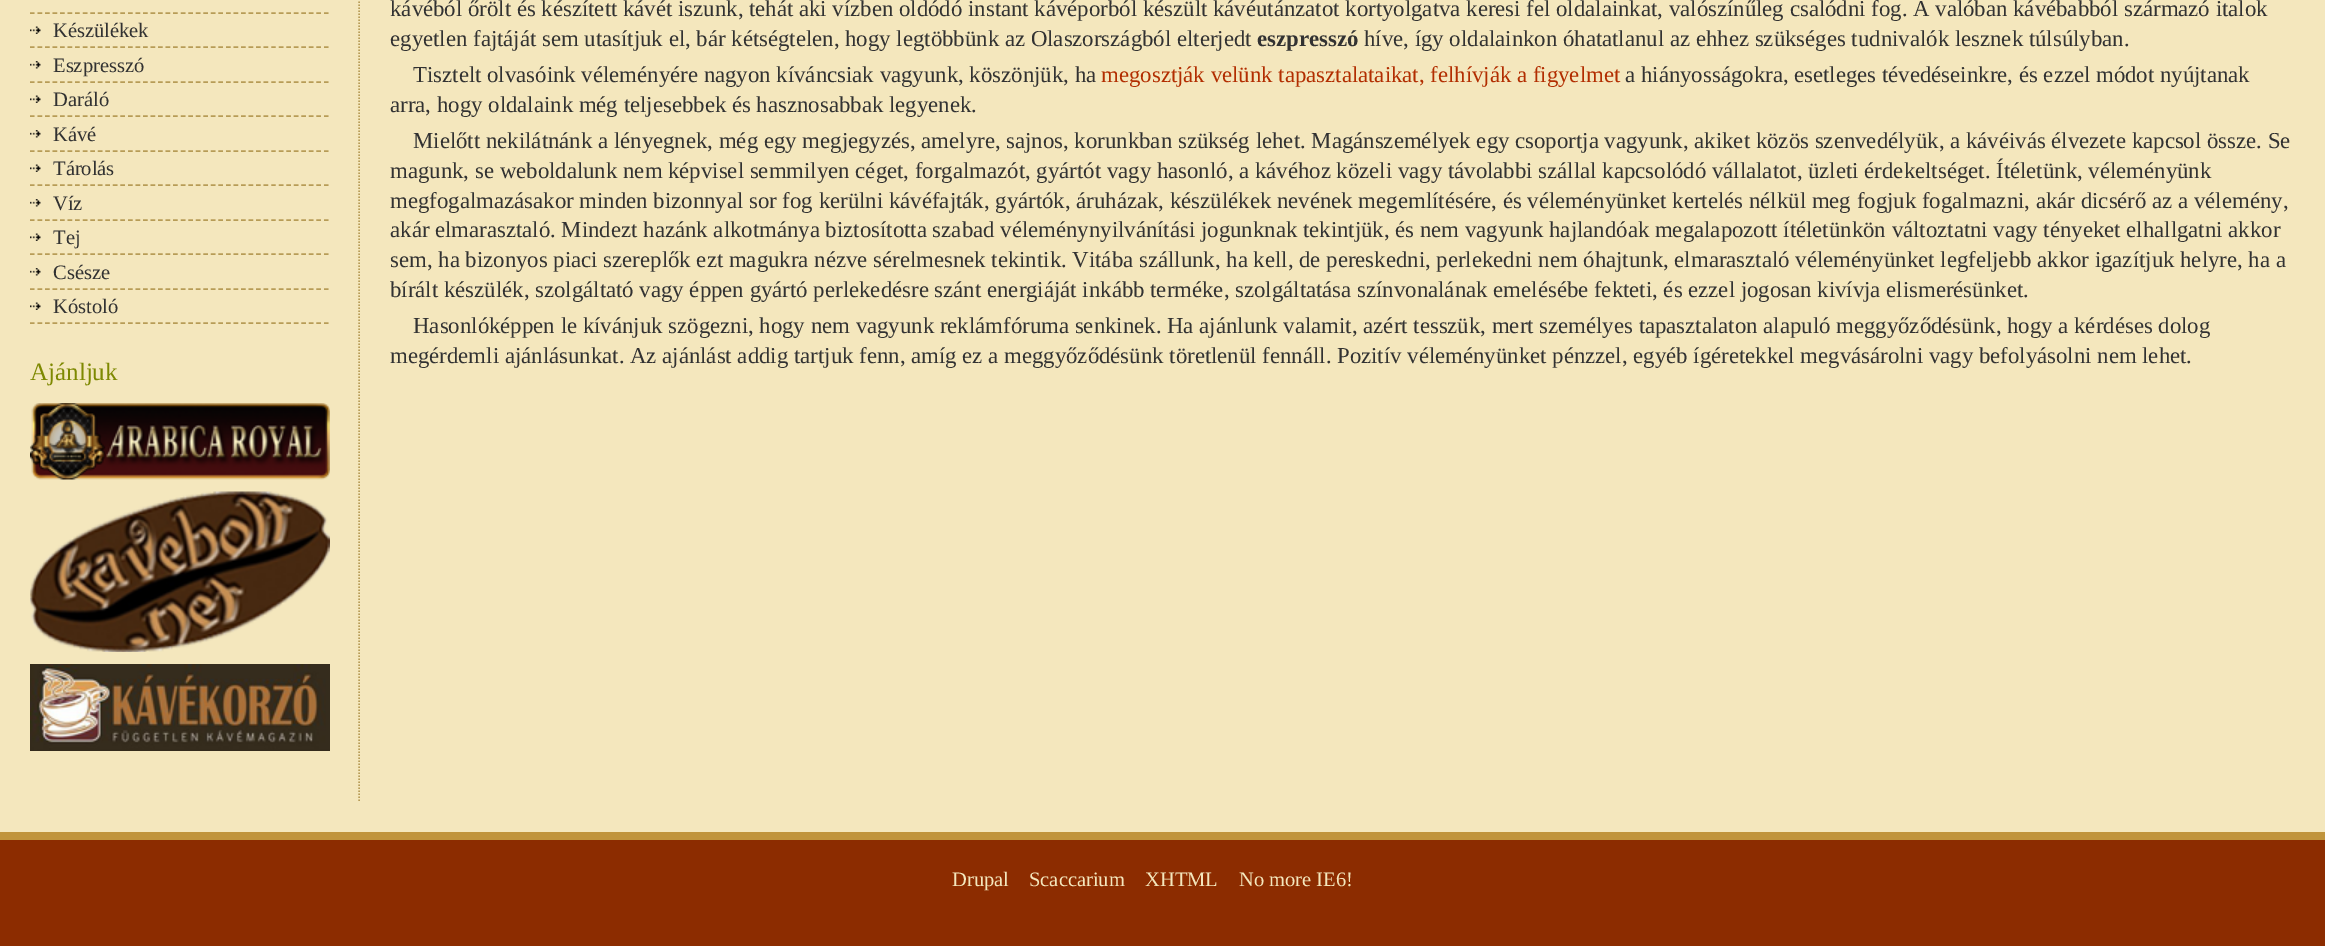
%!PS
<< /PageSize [2325 946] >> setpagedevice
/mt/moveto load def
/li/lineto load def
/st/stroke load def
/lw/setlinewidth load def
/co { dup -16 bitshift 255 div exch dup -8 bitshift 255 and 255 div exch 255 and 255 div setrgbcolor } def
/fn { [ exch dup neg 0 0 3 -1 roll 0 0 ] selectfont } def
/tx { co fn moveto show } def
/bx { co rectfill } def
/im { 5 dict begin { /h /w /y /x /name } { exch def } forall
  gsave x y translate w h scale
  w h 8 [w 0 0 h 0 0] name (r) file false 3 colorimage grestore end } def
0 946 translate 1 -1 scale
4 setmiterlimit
0 0 2325 946 16#F4E7BD bx
16#B79C56 co
1.5 lw
[1.5 1.5] 0 setdash
359 -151.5 mt 359 802.5 li st
[4.5 3.04] 0 setdash
30 13 mt 328.5 13 li st
(media/1.raw) 30 26 11 8 im
30 47 mt 328.5 47 li st
(media/2.raw) 30 61 11 8 im
30 82 mt 328.5 82 li st
(media/1.raw) 30 95 11 8 im
30 116 mt 328.5 116 li st
(media/2.raw) 30 130 11 8 im
30 151 mt 328.5 151 li st
(media/1.raw) 30 164 11 8 im
30 185 mt 328.5 185 li st
(media/2.raw) 30 199 11 8 im
30 220 mt 328.5 220 li st
(media/1.raw) 30 233 11 8 im
30 254 mt 328.5 254 li st
(media/2.raw) 30 268 11 8 im
30 289 mt 328.5 289 li st
(media/1.raw) 30 302 11 8 im
30 323 mt 328.5 323 li st
(media/3.raw) 30 403 300 77 im
(media/4.raw) 30 491 300 161 im
(media/5.raw) 30 664 300 87 im
0 840 2325 106 16#8C2C00 bx
0 832 2325 8 16#C0943C bx
(Készülékek) 53 37 /LiberationSerif-Regular 20.5 16#323232 tx
(Eszpresszó) 53 72 /LiberationSerif-Regular 20.5 16#323232 tx
(Daráló) 53 106 /LiberationSerif-Regular 20.5 16#323232 tx
(Kávé) 53 141 /LiberationSerif-Regular 20.5 16#323232 tx
(Tárolás) 53 175 /LiberationSerif-Regular 20.5 16#323232 tx
(Víz) 53 210 /LiberationSerif-Regular 20.5 16#323232 tx
(Tej) 53 244 /LiberationSerif-Regular 20.5 16#323232 tx
(Csésze) 53 279 /LiberationSerif-Regular 20.5 16#323232 tx
(Kóstoló) 53 313 /LiberationSerif-Regular 20.5 16#323232 tx
(Ajánljuk) 30 380 /LiberationSerif-Regular 25 16#7E8901 tx
(kávéból őrölt és készített kávét iszunk, tehát aki vízben oldódó instant kávéporból készült kávéutánzatot kortyolgatva keresi fel oldalainkat, valószínűleg csalódni fog. A valóban kávébabból származó italok) 390 16 /LiberationSerif-Regular 22.8 16#323232 tx
(egyetlen fajtáját sem utasítjuk el, bár kétségtelen, hogy legtöbbünk az Olaszországból elterjedt) 390 46 /LiberationSerif-Regular 22.8 16#323232 tx
(eszpresszó) 1257 46 /LiberationSerif-Bold 22.8 16#323232 tx
(híve, így oldalainkon óhatatlanul az ehhez szükséges tudnivalók lesznek túlsúlyban.) 1364 46 /LiberationSerif-Regular 22.8 16#323232 tx
(Tisztelt olvasóink véleményére nagyon kíváncsiak vagyunk, köszönjük, ha) 413 82 /LiberationSerif-Regular 22.8 16#323232 tx
(megosztják velünk tapasztalataikat, felhívják a figyelmet) 1101 82 /LiberationSerif-Regular 22.8 16#B22D00 tx
(a hiányosságokra, esetleges tévedéseinkre, és ezzel módot nyújtanak) 1625 82 /LiberationSerif-Regular 22.8 16#323232 tx
(arra, hogy oldalaink még teljesebbek és hasznosabbak legyenek.) 390 112 /LiberationSerif-Regular 22.8 16#323232 tx
(Mielőtt nekilátnánk a lényegnek, még egy megjegyzés, amelyre, sajnos, korunkban szükség lehet. Magánszemélyek egy csoportja vagyunk, akiket közös szenvedélyük, a kávéivás élvezete kapcsol össze. Se) 413 148 /LiberationSerif-Regular 22.8 16#323232 tx
(magunk, se weboldalunk nem képvisel semmilyen céget, forgalmazót, gyártót vagy hasonló, a kávéhoz közeli vagy távolabbi szállal kapcsolódó vállalatot, üzleti érdekeltséget. Ítéletünk, véleményünk) 390 178 /LiberationSerif-Regular 22.8 16#323232 tx
(megfogalmazásakor minden bizonnyal sor fog kerülni kávéfajták, gyártók, áruházak, készülékek nevének megemlítésére, és véleményünket kertelés nélkül meg fogjuk fogalmazni, akár dicsérő az a vélemény,) 390 208 /LiberationSerif-Regular 22.8 16#323232 tx
(akár elmarasztaló. Mindezt hazánk alkotmánya biztosította szabad véleménynyilvánítási jogunknak tekintjük, és nem vagyunk hajlandóak megalapozott ítéletünkön változtatni vagy tényeket elhallgatni akkor) 390 237 /LiberationSerif-Regular 22.8 16#323232 tx
(sem, ha bizonyos piaci szereplők ezt magukra nézve sérelmesnek tekintik. Vitába szállunk, ha kell, de pereskedni, perlekedni nem óhajtunk, elmarasztaló véleményünket legfeljebb akkor igazítjuk helyre, ha a) 390 267 /LiberationSerif-Regular 22.8 16#323232 tx
(bírált készülék, szolgáltató vagy éppen gyártó perlekedésre szánt energiáját inkább terméke, szolgáltatása színvonalának emelésébe fekteti, és ezzel jogosan kivívja elismerésünket.) 390 297 /LiberationSerif-Regular 22.8 16#323232 tx
(Hasonlóképpen le kívánjuk szögezni, hogy nem vagyunk reklámfóruma senkinek. Ha ajánlunk valamit, azért tesszük, mert személyes tapasztalaton alapuló meggyőződésünk, hogy a kérdéses dolog) 413 333 /LiberationSerif-Regular 22.8 16#323232 tx
(megérdemli ajánlásunkat. Az ajánlást addig tartjuk fenn, amíg ez a meggyőződésünk töretlenül fennáll. Pozitív véleményünket pénzzel, egyéb ígéretekkel megvásárolni vagy befolyásolni nem lehet.) 390 363 /LiberationSerif-Regular 22.8 16#323232 tx
(Drupal) 952 886 /LiberationSerif-Regular 20.5 16#F4E7BD tx
(Scaccarium) 1029 886 /LiberationSerif-Regular 20.5 16#F4E7BD tx
(XHTML) 1145 886 /LiberationSerif-Regular 20.5 16#F4E7BD tx
(No more IE6!) 1239 886 /LiberationSerif-Regular 20.5 16#F4E7BD tx
showpage
